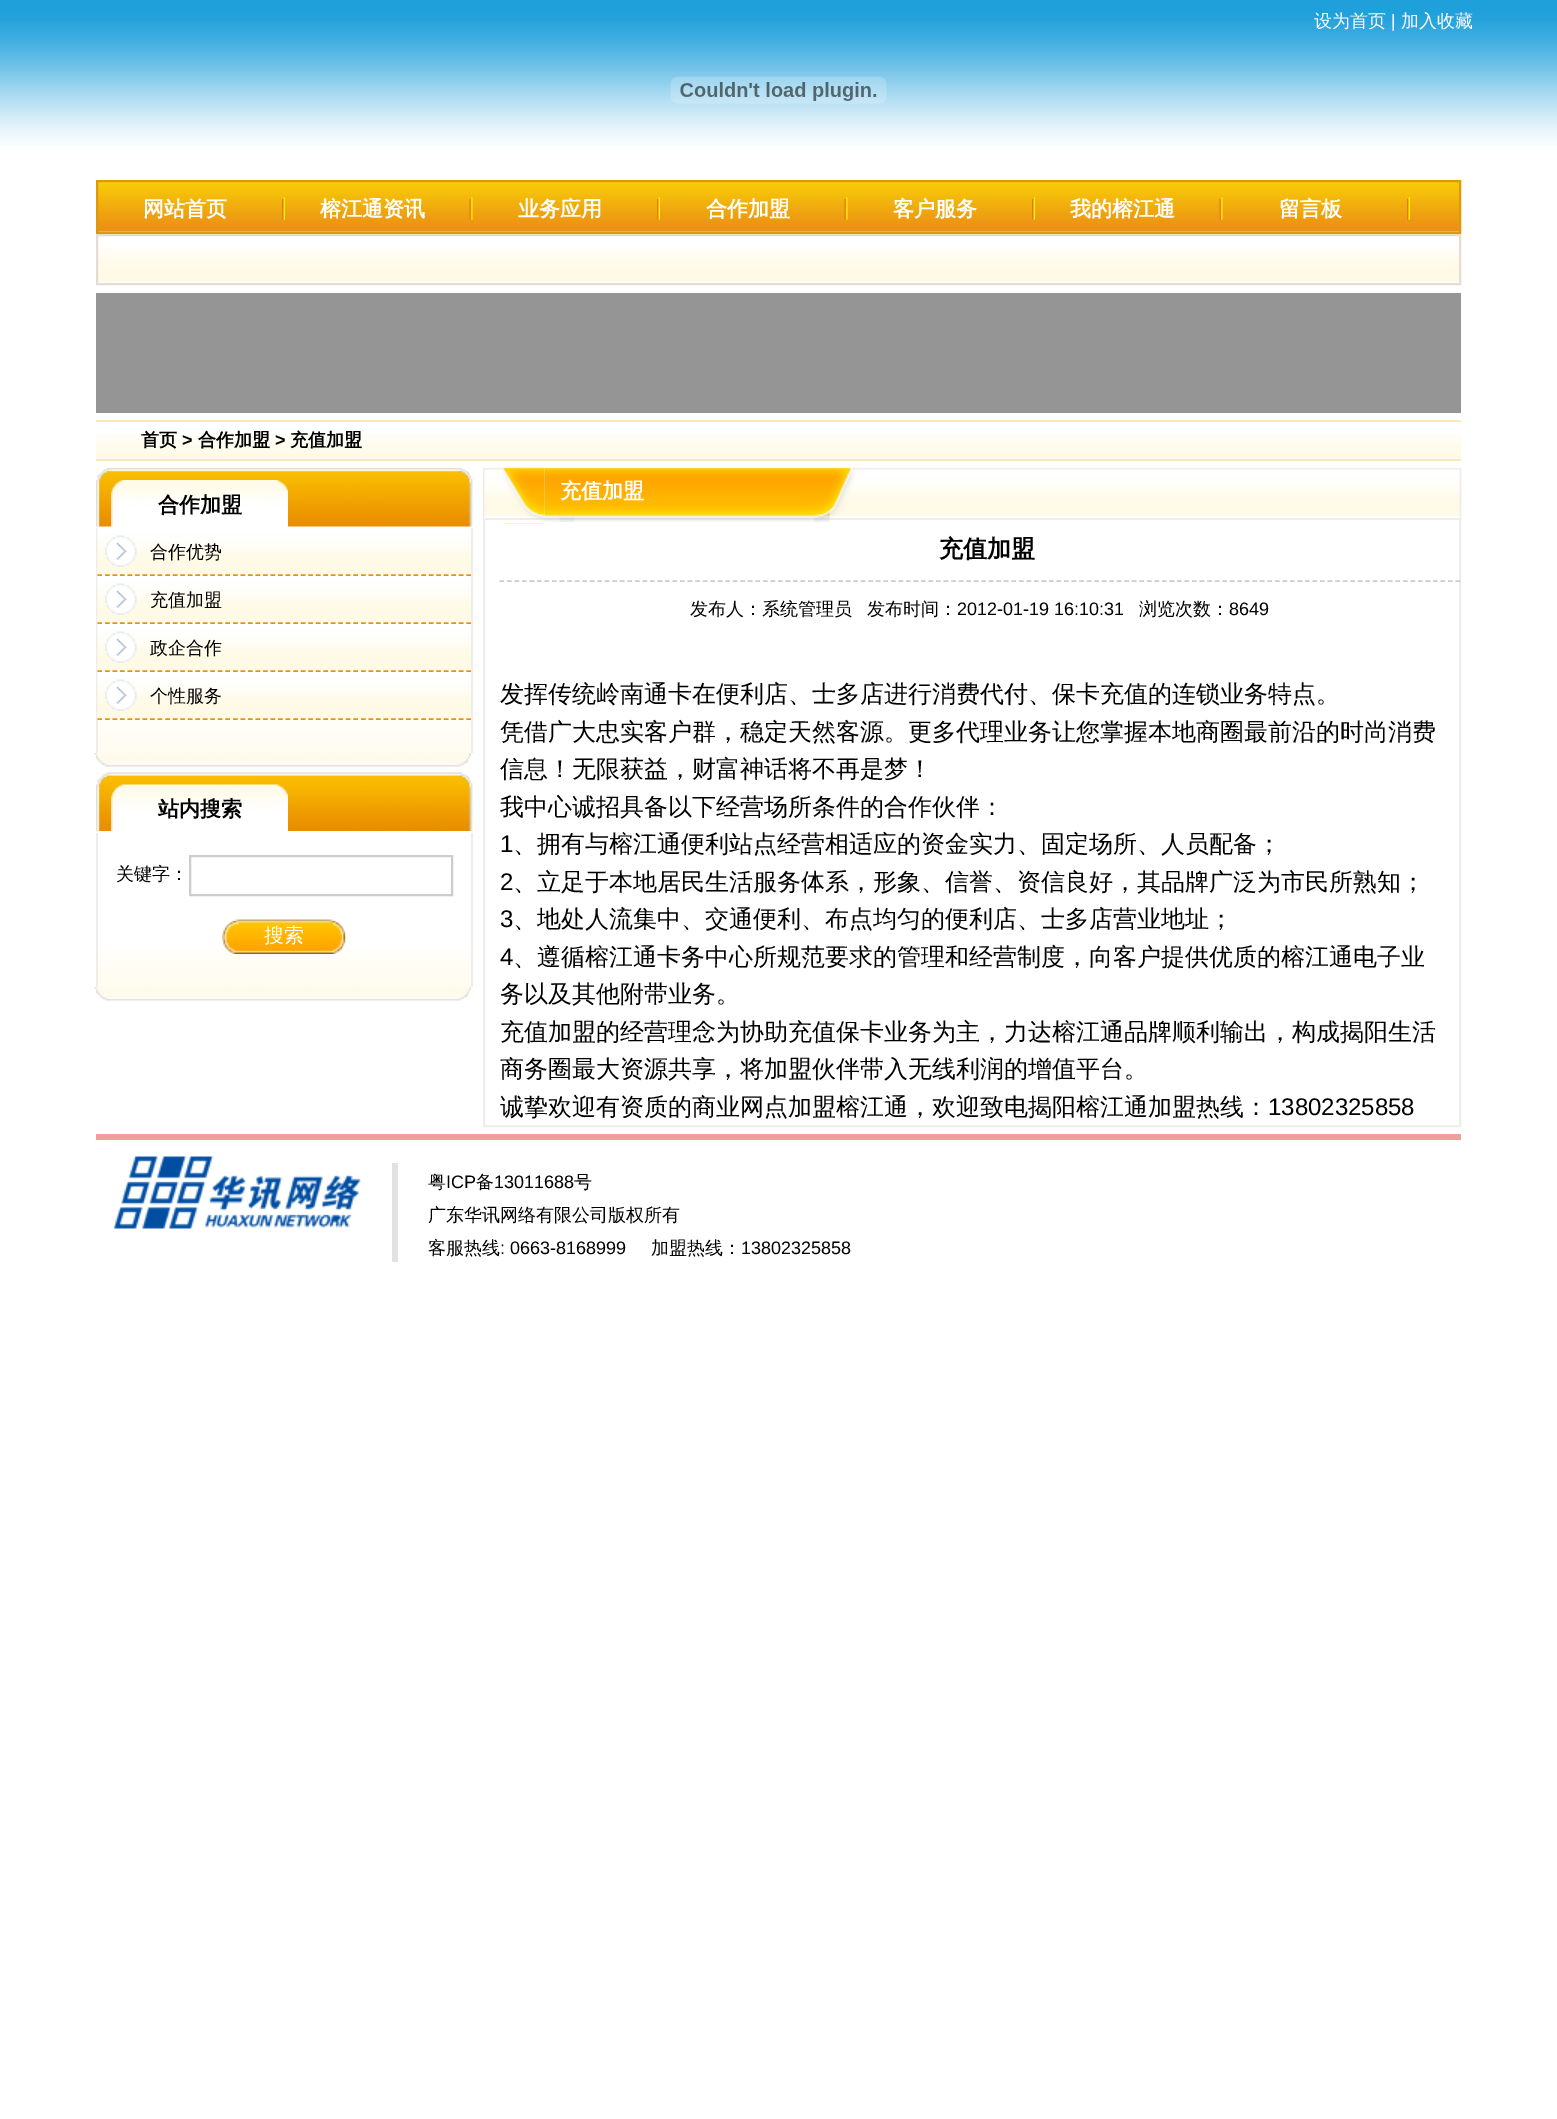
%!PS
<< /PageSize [1557 2119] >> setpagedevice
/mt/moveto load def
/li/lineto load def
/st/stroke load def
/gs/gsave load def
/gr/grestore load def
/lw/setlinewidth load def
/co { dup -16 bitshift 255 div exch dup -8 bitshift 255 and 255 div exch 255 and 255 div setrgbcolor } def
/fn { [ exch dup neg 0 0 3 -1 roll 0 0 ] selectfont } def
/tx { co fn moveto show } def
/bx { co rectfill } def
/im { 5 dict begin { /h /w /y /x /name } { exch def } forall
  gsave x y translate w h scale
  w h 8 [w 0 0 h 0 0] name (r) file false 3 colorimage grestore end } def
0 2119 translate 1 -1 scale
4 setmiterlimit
0 0 1557 2119 16#FFFFFF bx
(media/1.raw) 0 0 1557 146 im
(media/2.raw) 670 76 217 28 im
(media/3.raw) 98 182 1361 50 im
16#DD9909 co
2 lw
97 181 1363 52 rectstroke
(media/4.raw) 282 197 3 23 im
(media/5.raw) 469 197 4 23 im
(media/6.raw) 657 197 3 23 im
(media/5.raw) 844 197 4 23 im
(media/4.raw) 1032 197 3 23 im
(media/5.raw) 1219 197 4 23 im
(media/6.raw) 1407 197 3 23 im
(media/7.raw) 98 247 1361 36 im
16#E6DCD3 co
97 235 1363 49 rectstroke
96 293 1365 120 16#959595 bx
(media/8.raw) 96 433 1365 26 im
96 420 1365 2 16#FCE6BA bx
96 459 1365 2 16#FCE6BA bx
(media/9.raw) 96 468 377 59 im
(media/10.raw) 111 480 177 47 im
(media/11.raw) 98 720 373 33 im
471 528 2 225 16#F0EDE9 bx
96 528 2 225 16#F0EDE9 bx
(media/12.raw) 97 528 374 48 im
16#EC9300 co
1.5 lw
[4.5 3.03] 0 setdash
97.5 575 mt 471 575 li st
(media/13.raw) 105 535 32 32 im
(media/12.raw) 97 576 374 48 im
97.5 623 mt 471 623 li st
(media/13.raw) 105 583 32 32 im
(media/12.raw) 97 624 374 48 im
97.5 671 mt 471 671 li st
(media/13.raw) 105 631 32 32 im
(media/12.raw) 97 672 374 48 im
97.5 719 mt 471 719 li st
(media/13.raw) 105 679 32 32 im
(media/14.raw) 94 753 377 14 im
(media/15.raw) 96 772 377 59 im
(media/16.raw) 111 784 177 47 im
(media/17.raw) 98 949 373 38 im
471 833 2 154 16#F0EDE9 bx
96 833 2 154 16#F0EDE9 bx
16#CDCDCD co
2 lw
[] 0 setdash
190 856 262 39 rectstroke
(media/18.raw) 222 919 124 35 im
(media/14.raw) 94 987 377 14 im
16#F0EDE9 co
484 469 976 657 rectstroke
(media/19.raw) 484 469 976 50 im
485 518 975 2 16#F0EDE9 bx
(media/20.raw) 544 467 31 55 im
(media/21.raw) 502 467 43 57 im
(media/22.raw) 559 467 271 55 im
(media/23.raw) 814 467 41 55 im
gs
483 461 978 666 rectclip
16#CCCCCC co
1.5 lw
[4.5 3.03] 0 setdash
499.5 581 mt 1474.5 581 li st
gr
96 1134 1365 6 16#EF9F9B bx
(media/24.raw) 113 1156 248 73 im
392 1163 6 99 16#E2E2E2 bx
(设为首页) 1314 27 /WenQuanYiZenHei-Medium 18 16#FFFFFF tx
(|) 1391 27 /LiberationSans-Regular 18 16#FFFFFF tx
(加入收藏) 1401 27 /WenQuanYiZenHei-Medium 18 16#FFFFFF tx
(网站首页) 143 216 /WenQuanYiZenHei-Bold 21 16#FFFFFF tx
(榕江通资讯) 320 216 /WenQuanYiZenHei-Bold 21 16#FFFFFF tx
(业务应用) 518 216 /WenQuanYiZenHei-Bold 21 16#FFFFFF tx
(合作加盟) 706 216 /WenQuanYiZenHei-Bold 21 16#FFFFFF tx
(客户服务) 893 216 /WenQuanYiZenHei-Bold 21 16#FFFFFF tx
(我的榕江通) 1070 216 /WenQuanYiZenHei-Bold 21 16#FFFFFF tx
(留言板) 1279 216 /WenQuanYiZenHei-Bold 21 16#FFFFFF tx
(首页) 141 446 /WenQuanYiZenHei-Bold 18 16#000000 tx
(>) 182 446 /LiberationSans-Bold 18 16#000000 tx
(合作加盟) 198 446 /WenQuanYiZenHei-Bold 18 16#000000 tx
(>) 275 446 /LiberationSans-Bold 18 16#000000 tx
(充值加盟) 290 446 /WenQuanYiZenHei-Bold 18 16#000000 tx
(合作加盟) 158 512 /WenQuanYiZenHei-Bold 21 16#000000 tx
(合作优势) 150 558 /WenQuanYiZenHei-Medium 18 16#000000 tx
(充值加盟) 150 606 /WenQuanYiZenHei-Medium 18 16#000000 tx
(政企合作) 150 654 /WenQuanYiZenHei-Medium 18 16#000000 tx
(个性服务) 150 702 /WenQuanYiZenHei-Medium 18 16#000000 tx
(站内搜索) 158 816 /WenQuanYiZenHei-Bold 21 16#000000 tx
(关键字：) 116 880 /WenQuanYiZenHei-Medium 18 16#000000 tx
(搜索) 264 942 /WenQuanYiZenHei-Medium 20 16#FFFFFF tx
(充值加盟) 560 498 /WenQuanYiZenHei-Bold 21 16#FFFFFF tx
(充值加盟) 939 557 /WenQuanYiZenHei-Bold 24 16#000000 tx
(发布人：系统管理员) 690 615 /WenQuanYiZenHei-Medium 18 16#000000 tx
(发布时间：) 867 615 /WenQuanYiZenHei-Medium 18 16#000000 tx
(2012-01-19 16:10:31) 957 615 /LiberationSans-Regular 18 16#000000 tx
(浏览次数：) 1139 615 /WenQuanYiZenHei-Medium 18 16#000000 tx
(8649) 1229 615 /LiberationSans-Regular 18 16#000000 tx
(发挥传统岭南通卡在便利店、士多店进行消费代付、保卡充值的连锁业务特点。) 500 702 /WenQuanYiZenHei-Medium 24 16#000000 tx
(凭借广大忠实客户群，稳定天然客源。更多代理业务让您掌握本地商圈最前沿的时尚消费) 500 740 /WenQuanYiZenHei-Medium 24 16#000000 tx
(信息！无限获益，财富神话将不再是梦！) 500 777 /WenQuanYiZenHei-Medium 24 16#000000 tx
(我中心诚招具备以下经营场所条件的合作伙伴：) 500 815 /WenQuanYiZenHei-Medium 24 16#000000 tx
(1) 500 852 /LiberationSans-Regular 24 16#000000 tx
(、拥有与榕江通便利站点经营相适应的资金实力、固定场所、人员配备；) 513 852 /WenQuanYiZenHei-Medium 24 16#000000 tx
(2) 500 890 /LiberationSans-Regular 24 16#000000 tx
(、立足于本地居民生活服务体系，形象、信誉、资信良好，其品牌广泛为市民所熟知；) 513 890 /WenQuanYiZenHei-Medium 24 16#000000 tx
(3) 500 927 /LiberationSans-Regular 24 16#000000 tx
(、地处人流集中、交通便利、布点均匀的便利店、士多店营业地址；) 513 927 /WenQuanYiZenHei-Medium 24 16#000000 tx
(4) 500 965 /LiberationSans-Regular 24 16#000000 tx
(、遵循榕江通卡务中心所规范要求的管理和经营制度，向客户提供优质的榕江通电子业) 513 965 /WenQuanYiZenHei-Medium 24 16#000000 tx
(务以及其他附带业务。) 500 1002 /WenQuanYiZenHei-Medium 24 16#000000 tx
(充值加盟的经营理念为协助充值保卡业务为主，力达榕江通品牌顺利输出，构成揭阳生活) 500 1040 /WenQuanYiZenHei-Medium 24 16#000000 tx
(商务圈最大资源共享，将加盟伙伴带入无线利润的增值平台。) 500 1077 /WenQuanYiZenHei-Medium 24 16#000000 tx
(诚挚欢迎有资质的商业网点加盟榕江通，欢迎致电揭阳榕江通加盟热线：) 500 1115 /WenQuanYiZenHei-Medium 24 16#000000 tx
(13802325858) 1268 1115 /LiberationSans-Regular 24 16#000000 tx
(粤) 428 1188 /WenQuanYiZenHei-Medium 18 16#000000 tx
(ICP) 446 1188 /LiberationSans-Regular 18 16#000000 tx
(备) 476 1188 /WenQuanYiZenHei-Medium 18 16#000000 tx
(13011688) 494 1188 /LiberationSans-Regular 18 16#000000 tx
(号) 574 1188 /WenQuanYiZenHei-Medium 18 16#000000 tx
(广东华讯网络有限公司版权所有) 428 1221 /WenQuanYiZenHei-Medium 18 16#000000 tx
(客服热线) 428 1254 /WenQuanYiZenHei-Medium 18 16#000000 tx
(: 0663-8168999) 500 1254 /LiberationSans-Regular 18 16#000000 tx
(加盟热线：) 651 1254 /WenQuanYiZenHei-Medium 18 16#000000 tx
(13802325858) 741 1254 /LiberationSans-Regular 18 16#000000 tx
showpage
